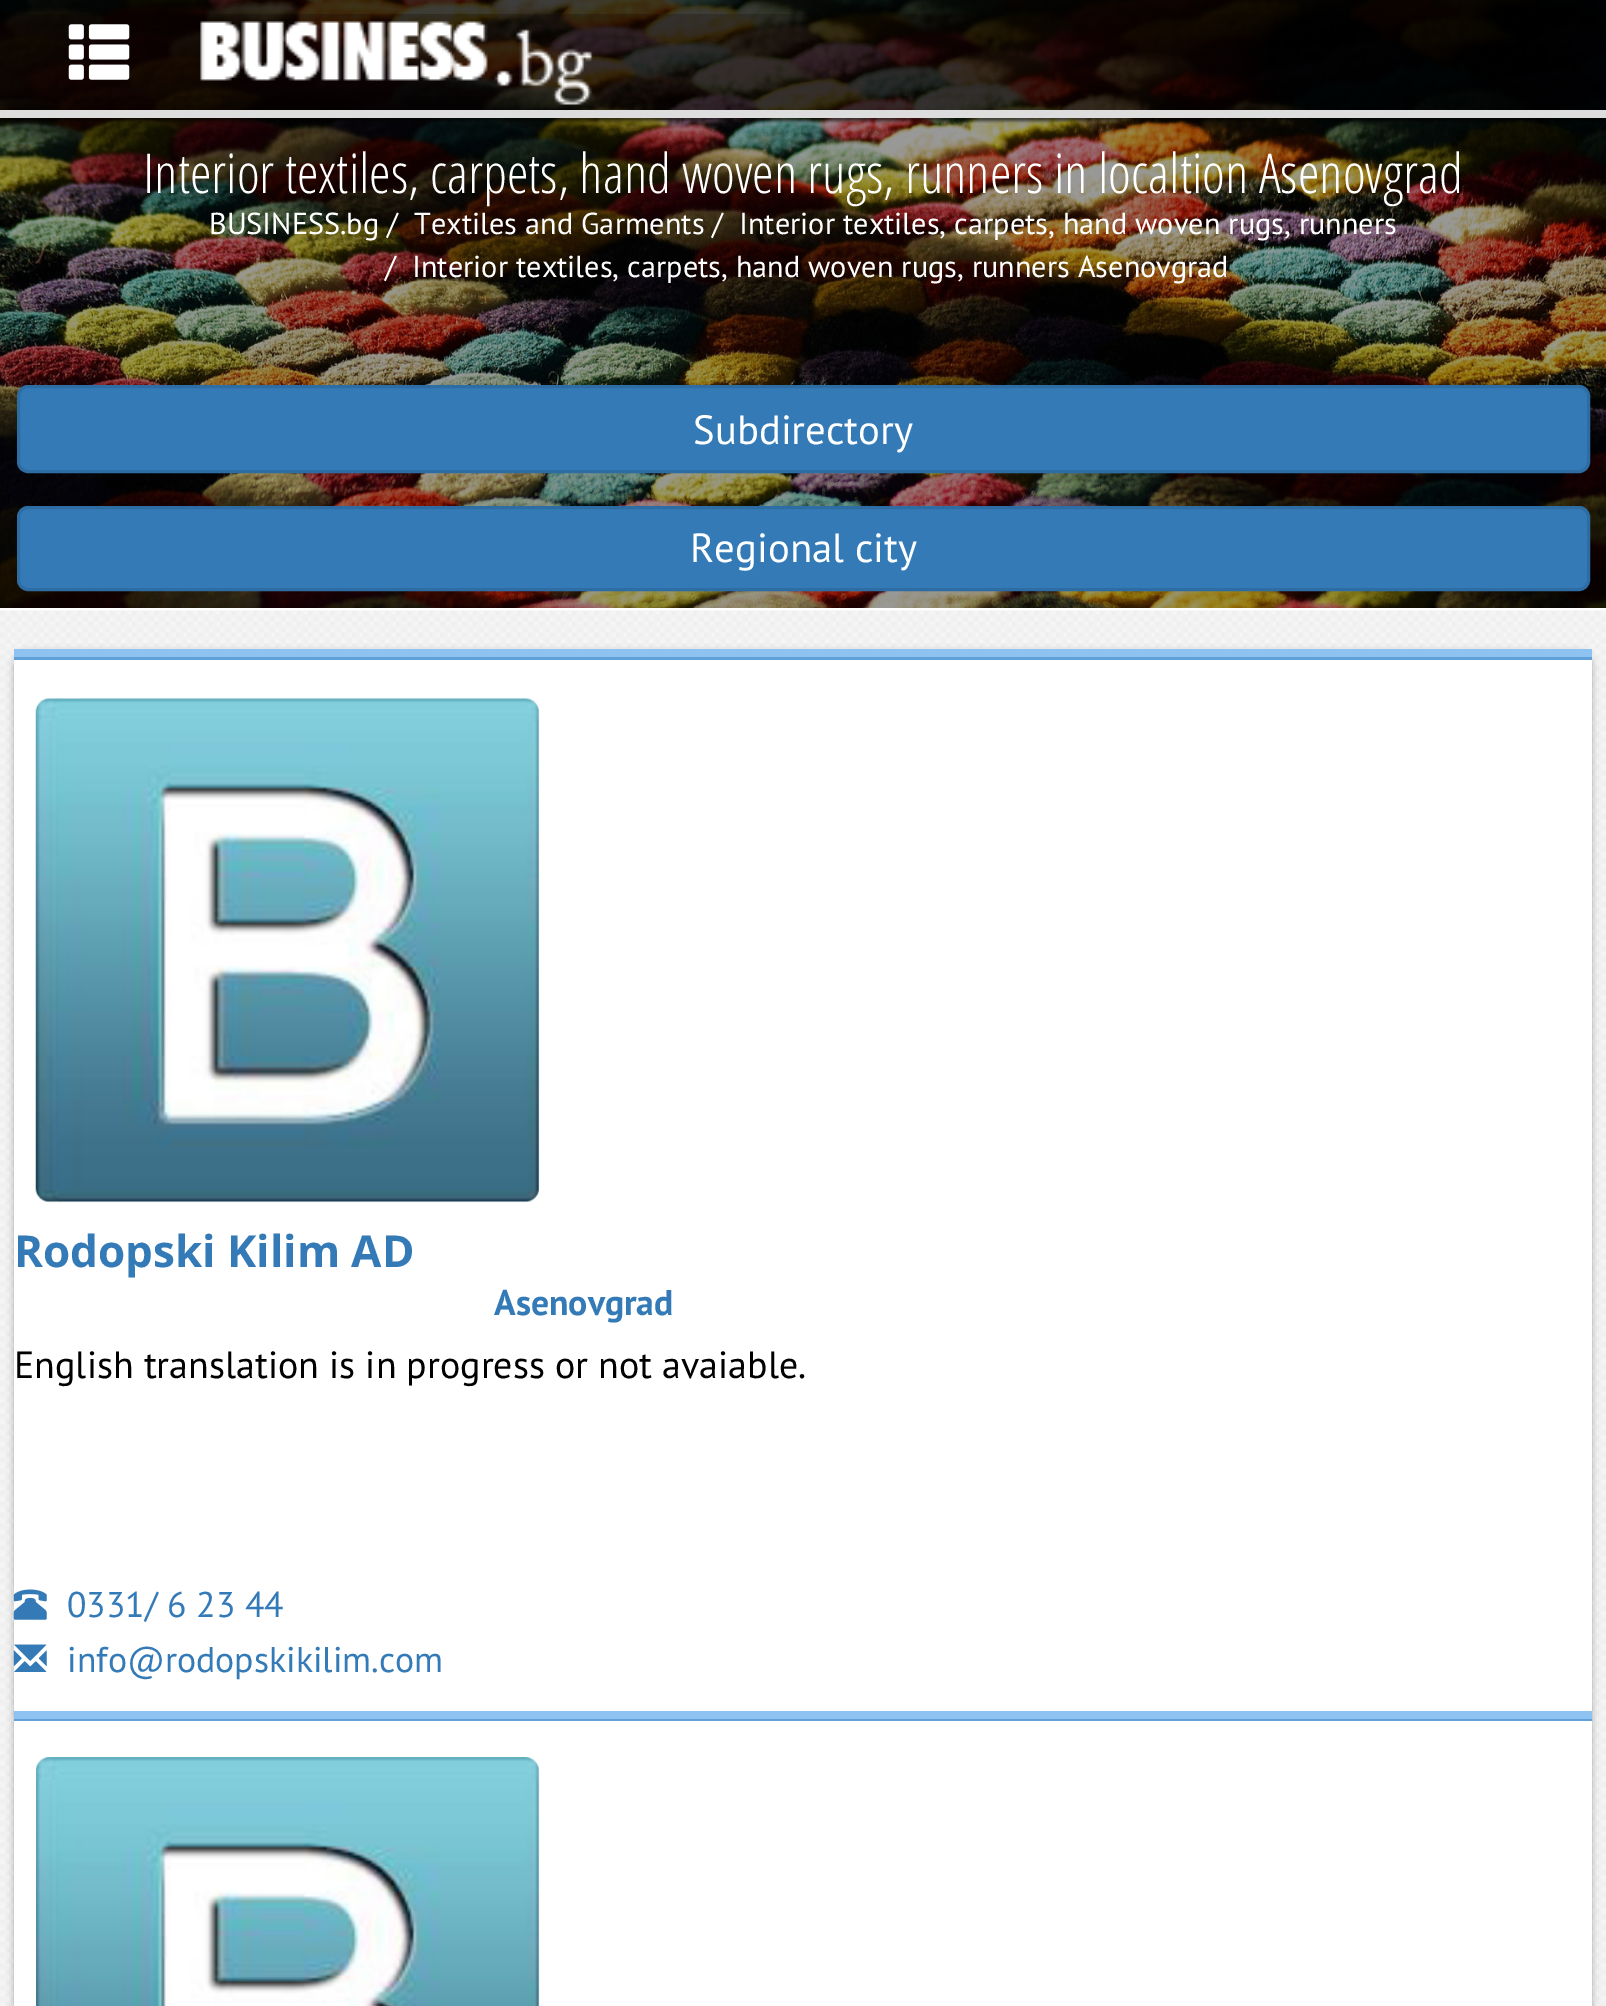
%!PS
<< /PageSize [1606 2006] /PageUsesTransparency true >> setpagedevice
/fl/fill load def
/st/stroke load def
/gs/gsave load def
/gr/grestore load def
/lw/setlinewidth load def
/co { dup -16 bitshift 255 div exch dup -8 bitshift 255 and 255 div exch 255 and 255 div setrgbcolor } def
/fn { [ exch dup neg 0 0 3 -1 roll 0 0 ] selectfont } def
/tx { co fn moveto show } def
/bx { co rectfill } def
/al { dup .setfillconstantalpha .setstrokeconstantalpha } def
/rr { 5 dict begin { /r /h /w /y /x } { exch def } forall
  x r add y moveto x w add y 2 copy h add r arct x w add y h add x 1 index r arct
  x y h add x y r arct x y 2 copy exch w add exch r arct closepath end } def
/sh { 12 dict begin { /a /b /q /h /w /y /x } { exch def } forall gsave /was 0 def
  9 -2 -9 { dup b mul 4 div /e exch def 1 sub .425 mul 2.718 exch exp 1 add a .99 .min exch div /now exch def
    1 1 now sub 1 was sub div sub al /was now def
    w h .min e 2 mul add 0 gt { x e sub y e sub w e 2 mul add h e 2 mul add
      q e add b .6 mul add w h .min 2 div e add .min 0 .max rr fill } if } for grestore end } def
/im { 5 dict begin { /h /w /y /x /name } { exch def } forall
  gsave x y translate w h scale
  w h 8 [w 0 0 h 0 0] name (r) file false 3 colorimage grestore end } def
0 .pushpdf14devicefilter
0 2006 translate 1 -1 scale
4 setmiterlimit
0 0 1606 2006 16#FFFFFF bx
(media/1.raw) 0 0 1606 608 im
gs
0 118 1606 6 rectclip
16#000000 co
0 3 1606 118 0 1.5 .6 sh
gr
0.6 al
0 0 1606 110 16#000000 bx
1 al
(media/2.raw) 0 14 1278 96 im
0 110 1606 8 16#DDDDDD bx
(media/3.raw) 68 24 62 56 im
(media/4.raw) 200 21 393 84 im
16#337AB7 co
18.5 386.5 1570 85 9.5 rr gs fl gr
16#2E6DA4 co
3 lw
st
16#337AB7 co
18.5 507.5 1570 82 9.5 rr gs fl gr
16#2E6DA4 co
st
(media/5.raw) 0 610 1606 1396 im
16#000000 co
14 652 1578 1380 14 4 .3 sh
16#FFFFFF co
14 649 1578 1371 14 rr fl
14 657 1578 3 16#60A1D9 bx
14 649 1578 8 16#8EC3F1 bx
(media/6.raw) 35 698 505 505 im
(media/7.raw) 13 1589 34 31 im
(media/8.raw) 13 1644 34 28 im
14 1719 1578 2 16#60A1D9 bx
14 1711 1578 8 16#8EC3F1 bx
(media/9.raw) 36 1757 504 249 im
(Interior textiles, carpets, hand woven rugs, runners in localtion Asenovgrad) 143 193 /OpenSans-Light 55 16#FFFFFF tx
(BUSINESS.bg /) 209 234 /PTSans-Regular 30.25 16#FFFFFF tx
(Textiles and Garments /) 414 234 /PTSans-Regular 30.25 16#FFFFFF tx
(Interior textiles, carpets, hand woven rugs, runners) 739 234 /PTSans-Regular 30.25 16#FFFFFF tx
(/) 385 277 /PTSans-Regular 30.25 16#FFFFFF tx
(Interior textiles, carpets, hand woven rugs, runners Asenovgrad) 412 277 /PTSans-Regular 30.25 16#FFFFFF tx
(Subdirectory) 693 444 /PTSans-Regular 40.75 16#FFFFFF tx
(Regional city) 690 562 /PTSans-Regular 40.75 16#FFFFFF tx
(Rodopski Kilim AD) 14 1267 /OpenSans-Bold 44 16#337AB7 tx
(Asenovgrad) 494 1315 /PTSans-Bold 35.75 16#337AB7 tx
(English translation is in progress or not avaiable.) 14 1378 /PTSans-Regular 37.95 16#000000 tx
(0331/ 6 23 44) 67 1617 /PTSans-Regular 35.75 16#337AB7 tx
(info@rodopskikilim.com) 67 1672 /PTSans-Regular 35.75 16#337AB7 tx
.poppdf14devicefilter showpage
